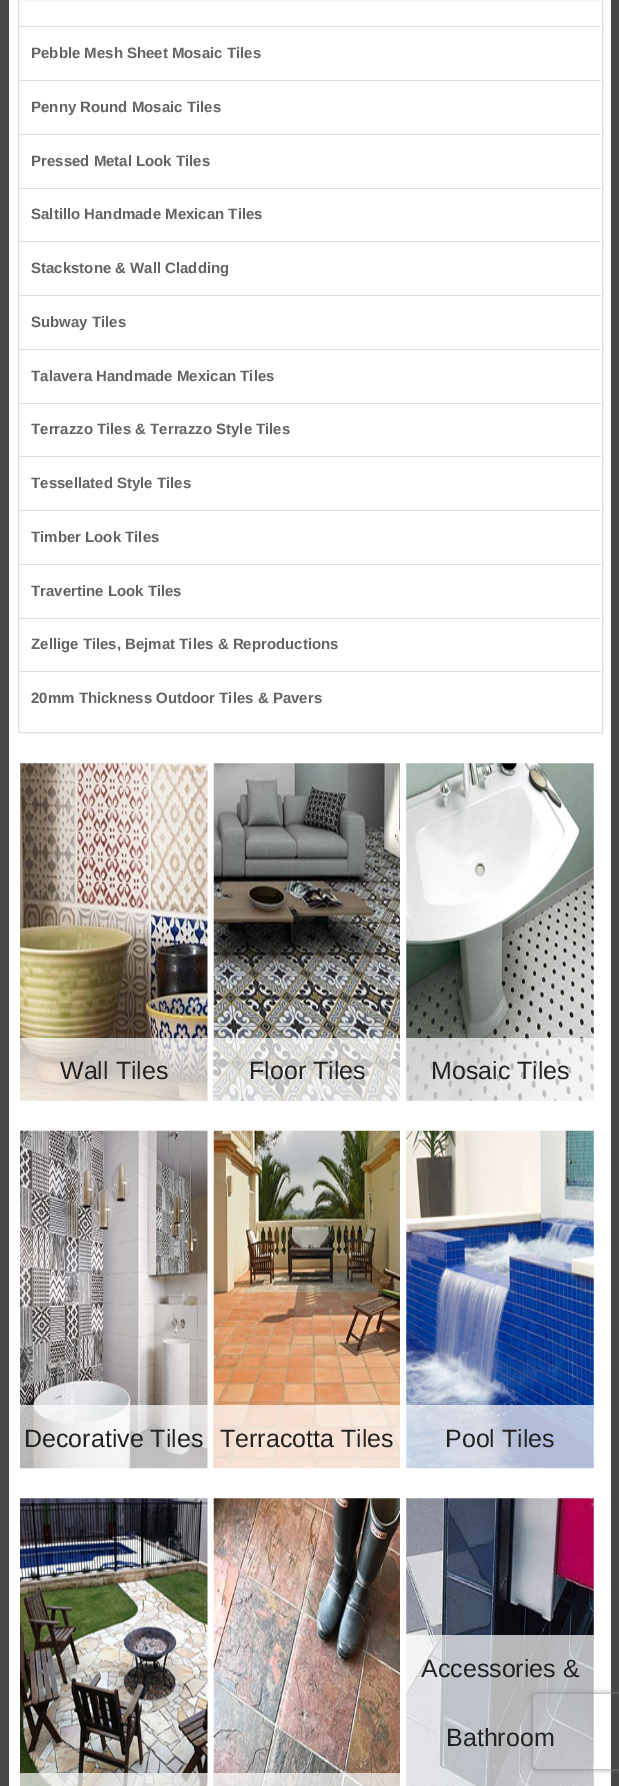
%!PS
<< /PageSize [619 1786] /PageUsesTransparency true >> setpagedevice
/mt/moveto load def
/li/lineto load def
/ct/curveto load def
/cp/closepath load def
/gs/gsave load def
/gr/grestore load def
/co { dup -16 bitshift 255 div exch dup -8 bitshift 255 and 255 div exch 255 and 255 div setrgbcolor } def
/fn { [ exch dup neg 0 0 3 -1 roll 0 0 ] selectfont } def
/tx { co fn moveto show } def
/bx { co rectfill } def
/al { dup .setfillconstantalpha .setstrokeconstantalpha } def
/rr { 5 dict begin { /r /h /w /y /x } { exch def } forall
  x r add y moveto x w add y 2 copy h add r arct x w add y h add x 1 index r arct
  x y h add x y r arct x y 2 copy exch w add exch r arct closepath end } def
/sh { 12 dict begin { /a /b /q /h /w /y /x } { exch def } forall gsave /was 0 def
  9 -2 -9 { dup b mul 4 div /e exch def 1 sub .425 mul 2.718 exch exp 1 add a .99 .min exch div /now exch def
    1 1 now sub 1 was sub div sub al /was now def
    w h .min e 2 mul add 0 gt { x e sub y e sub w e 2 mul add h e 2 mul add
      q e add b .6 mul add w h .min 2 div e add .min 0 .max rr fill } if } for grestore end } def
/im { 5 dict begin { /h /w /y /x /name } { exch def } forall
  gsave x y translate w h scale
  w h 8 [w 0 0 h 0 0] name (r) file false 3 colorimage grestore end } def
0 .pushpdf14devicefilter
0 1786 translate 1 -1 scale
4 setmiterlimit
0 0 619 1786 16#464646 bx
9 0 602 1786 16#FFFFFF bx
16#DDDDDD co
18.5 -.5 584 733 rectstroke
19 26 582 1 16#DDDDDD bx
19 80 582 1 16#DDDDDD bx
19 134 582 1 16#DDDDDD bx
19 188 582 1 16#DDDDDD bx
19 241 582 1 16#DDDDDD bx
19 295 582 1 16#DDDDDD bx
19 349 582 1 16#DDDDDD bx
19 403 582 1 16#DDDDDD bx
19 456 582 1 16#DDDDDD bx
19 510 582 1 16#DDDDDD bx
19 564 582 1 16#DDDDDD bx
19 618 582 1 16#DDDDDD bx
19 671 582 1 16#DDDDDD bx
(media/1.raw) 20 763 188 338 im
0.7 al
20 1038 188 63 16#FFFFFF bx
1 al
(media/2.raw) 213 763 187 338 im
0.7 al
214 1038 186 63 16#FFFFFF bx
1 al
(media/3.raw) 406 763 188 338 im
0.7 al
406 1038 188 63 16#FFFFFF bx
1 al
(media/4.raw) 20 1130 188 339 im
0.7 al
20 1405 188 64 16#FFFFFF bx
1 al
(media/5.raw) 213 1130 187 339 im
0.7 al
214 1405 186 64 16#FFFFFF bx
1 al
(media/6.raw) 406 1130 188 339 im
0.7 al
406 1405 188 64 16#FFFFFF bx
1 al
(media/7.raw) 20 1498 188 288 im
0.7 al
20 1773 188 13 16#FFFFFF bx
1 al
(media/8.raw) 213 1498 187 288 im
0.7 al
214 1773 186 13 16#FFFFFF bx
1 al
(media/9.raw) 406 1498 188 288 im
0.7 al
406 1635 188 151 16#FFFFFF bx
gs
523 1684 mt 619 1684 li 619 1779 li 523 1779 li cp 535.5 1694 mt 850.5 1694 li 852 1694 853 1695 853 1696.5 ct 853 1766.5 li 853 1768 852 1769 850.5 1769 ct 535.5 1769 li 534 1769 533 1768 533 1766.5 ct 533 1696.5 li 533 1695 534 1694 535.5 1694 ct cp eoclip newpath
1 al
16#808080 co
533 1694 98 75 2.5 3 1 sh
gr
1 al
(Pebble Mesh Sheet Mosaic Tiles) 31 58 /LiberationSans-Bold 15 16#636363 tx
(Penny Round Mosaic Tiles) 31 112 /LiberationSans-Bold 15 16#636363 tx
(Pressed Metal Look Tiles) 31 166 /LiberationSans-Bold 15 16#636363 tx
(Saltillo Handmade Mexican Tiles) 31 219 /LiberationSans-Bold 15 16#636363 tx
(Stackstone & Wall Cladding) 31 273 /LiberationSans-Bold 15 16#636363 tx
(Subway Tiles) 31 327 /LiberationSans-Bold 15 16#636363 tx
(Talavera Handmade Mexican Tiles) 31 381 /LiberationSans-Bold 15 16#636363 tx
(Terrazzo Tiles & Terrazzo Style Tiles) 31 434 /LiberationSans-Bold 15 16#636363 tx
(Tessellated Style Tiles) 31 488 /LiberationSans-Bold 15 16#636363 tx
(Timber Look Tiles) 31 542 /LiberationSans-Bold 15 16#636363 tx
(Travertine Look Tiles) 31 596 /LiberationSans-Bold 15 16#636363 tx
(Zellige Tiles, Bejmat Tiles & Reproductions) 31 649 /LiberationSans-Bold 15 16#636363 tx
(20mm Thickness Outdoor Tiles & Pavers) 31 703 /LiberationSans-Bold 15 16#636363 tx
(Wall Tiles) 60 1079 /LiberationSans-Regular 25 16#222222 tx
(Floor Tiles) 249 1079 /LiberationSans-Regular 25 16#222222 tx
(Mosaic Tiles) 431 1079 /LiberationSans-Regular 25 16#222222 tx
(Decorative Tiles) 24 1447 /LiberationSans-Regular 25 16#222222 tx
(Terracotta Tiles) 220 1447 /LiberationSans-Regular 25 16#222222 tx
(Pool Tiles) 445 1447 /LiberationSans-Regular 25 16#222222 tx
(Accessories &) 421 1677 /LiberationSans-Regular 25 16#222222 tx
(Bathroom) 446 1746 /LiberationSans-Regular 25 16#222222 tx
.poppdf14devicefilter showpage
